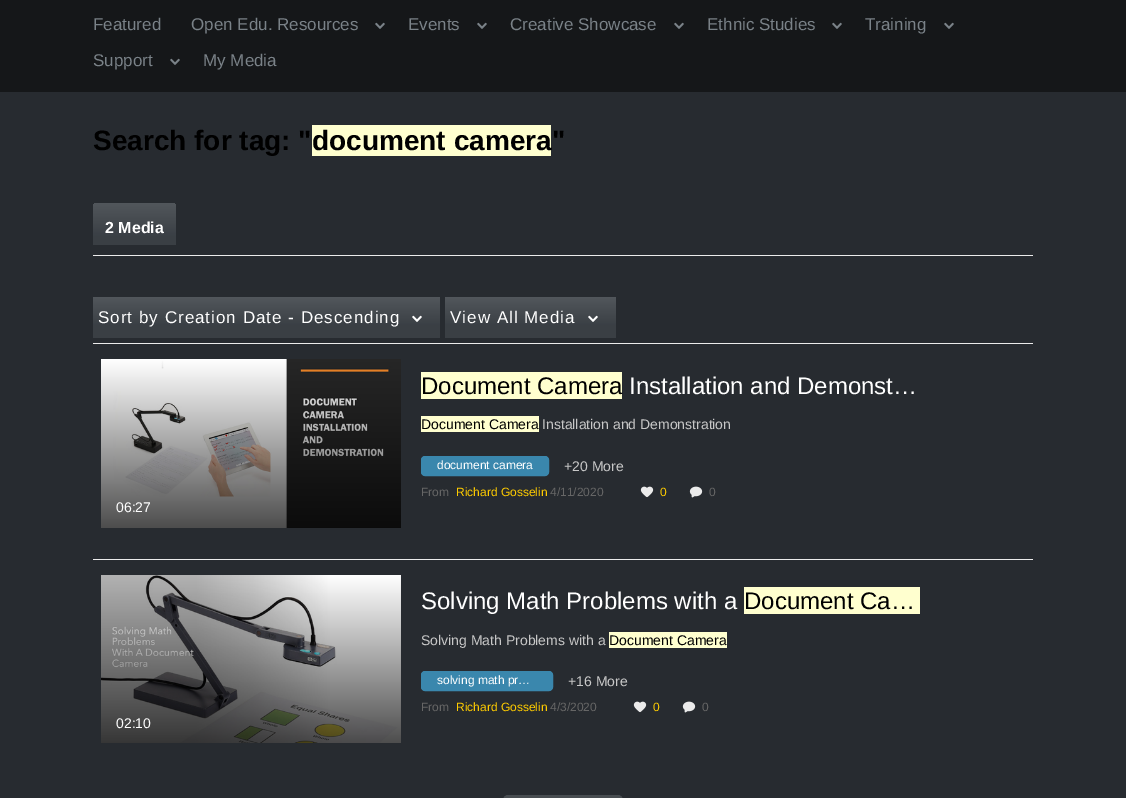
%!PS
<< /PageSize [1126 798] >> setpagedevice
/mt/moveto load def
/li/lineto load def
/ct/curveto load def
/cp/closepath load def
/fl/fill load def
/st/stroke load def
/gs/gsave load def
/gr/grestore load def
/co { dup -16 bitshift 255 div exch dup -8 bitshift 255 and 255 div exch 255 and 255 div setrgbcolor } def
/fn { [ exch dup neg 0 0 3 -1 roll 0 0 ] selectfont } def
/tx { co fn moveto show } def
/bx { co rectfill } def
/rr { 5 dict begin { /r /h /w /y /x } { exch def } forall
  x r add y moveto x w add y 2 copy h add r arct x w add y h add x 1 index r arct
  x y h add x y r arct x y 2 copy exch w add exch r arct closepath end } def
/im { 5 dict begin { /h /w /y /x /name } { exch def } forall
  gsave x y translate w h scale
  w h 8 [w 0 0 h 0 0] name (r) file false 3 colorimage grestore end } def
0 798 translate 1 -1 scale
4 setmiterlimit
0 0 1126 798 16#272B30 bx
0 0 1126 92 16#151719 bx
(media/1.raw) 375 22 10 7 im
(media/1.raw) 477 22 10 7 im
(media/1.raw) 674 22 10 7 im
(media/1.raw) 832 22 10 7 im
(media/1.raw) 944 22 10 7 im
(media/1.raw) 170 58 10 7 im
312 125 239 31 16#FFFFCF bx
93 255 940 1 16#EBEBEB bx
gs 97 203 mt 172 203 li 174 203 176 205 176 207 ct 176 245 li 93 245 li 93 207 li 93 205 95 203 97 203 ct cp clip newpath
<< /ShadingType 2 /ColorSpace /DeviceRGB /Coords [135 203 135 251] /Extend [true true] /Function << /FunctionType 3 /Domain [0 1] /Functions [<< /FunctionType 2 /Domain [0 1] /C0 [.322 .341 .361] /C1 [.227 .247 .267] /N 1 >> << /FunctionType 2 /Domain [0 1] /C0 [.227 .247 .267] /C1 [.227 .247 .267] /N 1 >>] /Bounds [.7] /Encode [0 1 0 1] >> >> shfill gr
gs 93 297 mt 440 297 li 440 338 li 93 338 li cp clip newpath
<< /ShadingType 2 /ColorSpace /DeviceRGB /Coords [267 297 267 338] /Extend [true true] /Function << /FunctionType 3 /Domain [0 1] /Functions [<< /FunctionType 2 /Domain [0 1] /C0 [.322 .341 .361] /C1 [.227 .247 .267] /N 1 >> << /FunctionType 2 /Domain [0 1] /C0 [.227 .247 .267] /C1 [.227 .247 .267] /N 1 >>] /Bounds [.7] /Encode [0 1 0 1] >> >> shfill gr
(media/2.raw) 412 315 10 7 im
gs 445 297 mt 616 297 li 616 338 li 445 338 li cp clip newpath
<< /ShadingType 2 /ColorSpace /DeviceRGB /Coords [531 297 531 338] /Extend [true true] /Function << /FunctionType 3 /Domain [0 1] /Functions [<< /FunctionType 2 /Domain [0 1] /C0 [.322 .341 .361] /C1 [.227 .247 .267] /N 1 >> << /FunctionType 2 /Domain [0 1] /C0 [.227 .247 .267] /C1 [.227 .247 .267] /N 1 >>] /Bounds [.7] /Encode [0 1 0 1] >> >> shfill gr
(media/2.raw) 588 315 10 7 im
93 343 940 1 16#EBEBEB bx
421 372 201 27 16#FFFFCF bx
421 416 118 16 16#FFFFCF bx
16#3A87AD co
421.5 456.5 127 19 3.5 rr gs fl gr
st
(media/3.raw) 640 486 14 12 im
(media/4.raw) 689 486 14 12 im
(media/5.raw) 101 359 300 169 im
93 559 940 1 16#EBEBEB bx
744 587 176 27 16#FFFFCF bx
609 632 118 16 16#FFFFCF bx
16#3A87AD co
421.5 671.5 131 19 3.5 rr gs fl gr
st
(media/3.raw) 633 701 14 12 im
(media/4.raw) 682 701 14 12 im
(media/6.raw) 101 575 300 168 im
16#484D51 co
503.5 795.5 119 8 4.5 rr gs fl gr
st
(Featured) 93 30 /LiberationSans-Regular 17 16#7A8288 tx
(Open Edu. Resources) 191 30 /LiberationSans-Regular 17 16#7A8288 tx
(Events) 408 30 /LiberationSans-Regular 17 16#7A8288 tx
(Creative Showcase) 510 30 /LiberationSans-Regular 17 16#7A8288 tx
(Ethnic Studies) 707 30 /LiberationSans-Regular 17 16#7A8288 tx
(Training) 865 30 /LiberationSans-Regular 17 16#7A8288 tx
(Support) 93 66 /LiberationSans-Regular 17 16#7A8288 tx
(My Media) 203 66 /LiberationSans-Regular 17 16#7A8288 tx
(Search for tag: ") 93 150 /LiberationSans-Bold 28 16#000000 tx
(document camera") 312 150 /LiberationSans-Bold 28 16#000000 tx
(2 Media) 105 233 /LiberationSans-Bold 16 16#FFFFFF tx
/LiberationSans-Regular 17 fn
98 323 mt 1 0 (Sort by Creation Date - Descending) ashow
450 323 mt 1 0 (View All Media) ashow
(Document Camera) 421 394 /LiberationSans-Regular 24 16#000000 tx
(Installation and Demonst…) 629 394 /LiberationSans-Regular 24 16#FFFFFF tx
(Document Camera) 421 429 /LiberationSans-Regular 14 16#000000 tx
(Installation and Demonstration) 542 429 /LiberationSans-Regular 14 16#C8C8C8 tx
(document camera) 437 469 /LiberationSans-Regular 12 16#FFFFFF tx
(+20 More) 564 471 /LiberationSans-Regular 14 16#C8C8C8 tx
(From) 421 496 /LiberationSans-Regular 12 16#666666 tx
(Richard Gosselin) 456 496 /LiberationSans-Regular 12 16#FFCC00 tx
(4/11/2020) 550 496 /LiberationSans-Regular 12 16#666666 tx
(0) 660 496 /LiberationSans-Regular 12 16#FFCC00 tx
(0) 709 496 /LiberationSans-Regular 12 16#666666 tx
(06:27) 116 512 /LiberationSans-Regular 14 16#FFFFFF tx
(Solving Math Problems with a) 421 609 /LiberationSans-Regular 24 16#FFFFFF tx
(Document Ca…) 744 609 /LiberationSans-Regular 24 16#000000 tx
(Solving Math Problems with a) 421 645 /LiberationSans-Regular 14 16#C8C8C8 tx
(Document Camera) 609 645 /LiberationSans-Regular 14 16#000000 tx
(solving math pr…) 437 684 /LiberationSans-Regular 12 16#FFFFFF tx
(+16 More) 568 686 /LiberationSans-Regular 14 16#C8C8C8 tx
(From) 421 711 /LiberationSans-Regular 12 16#666666 tx
(Richard Gosselin) 456 711 /LiberationSans-Regular 12 16#FFCC00 tx
(4/3/2020) 550 711 /LiberationSans-Regular 12 16#666666 tx
(0) 653 711 /LiberationSans-Regular 12 16#FFCC00 tx
(0) 702 711 /LiberationSans-Regular 12 16#666666 tx
(02:10) 116 728 /LiberationSans-Regular 14 16#FFFFFF tx
showpage
